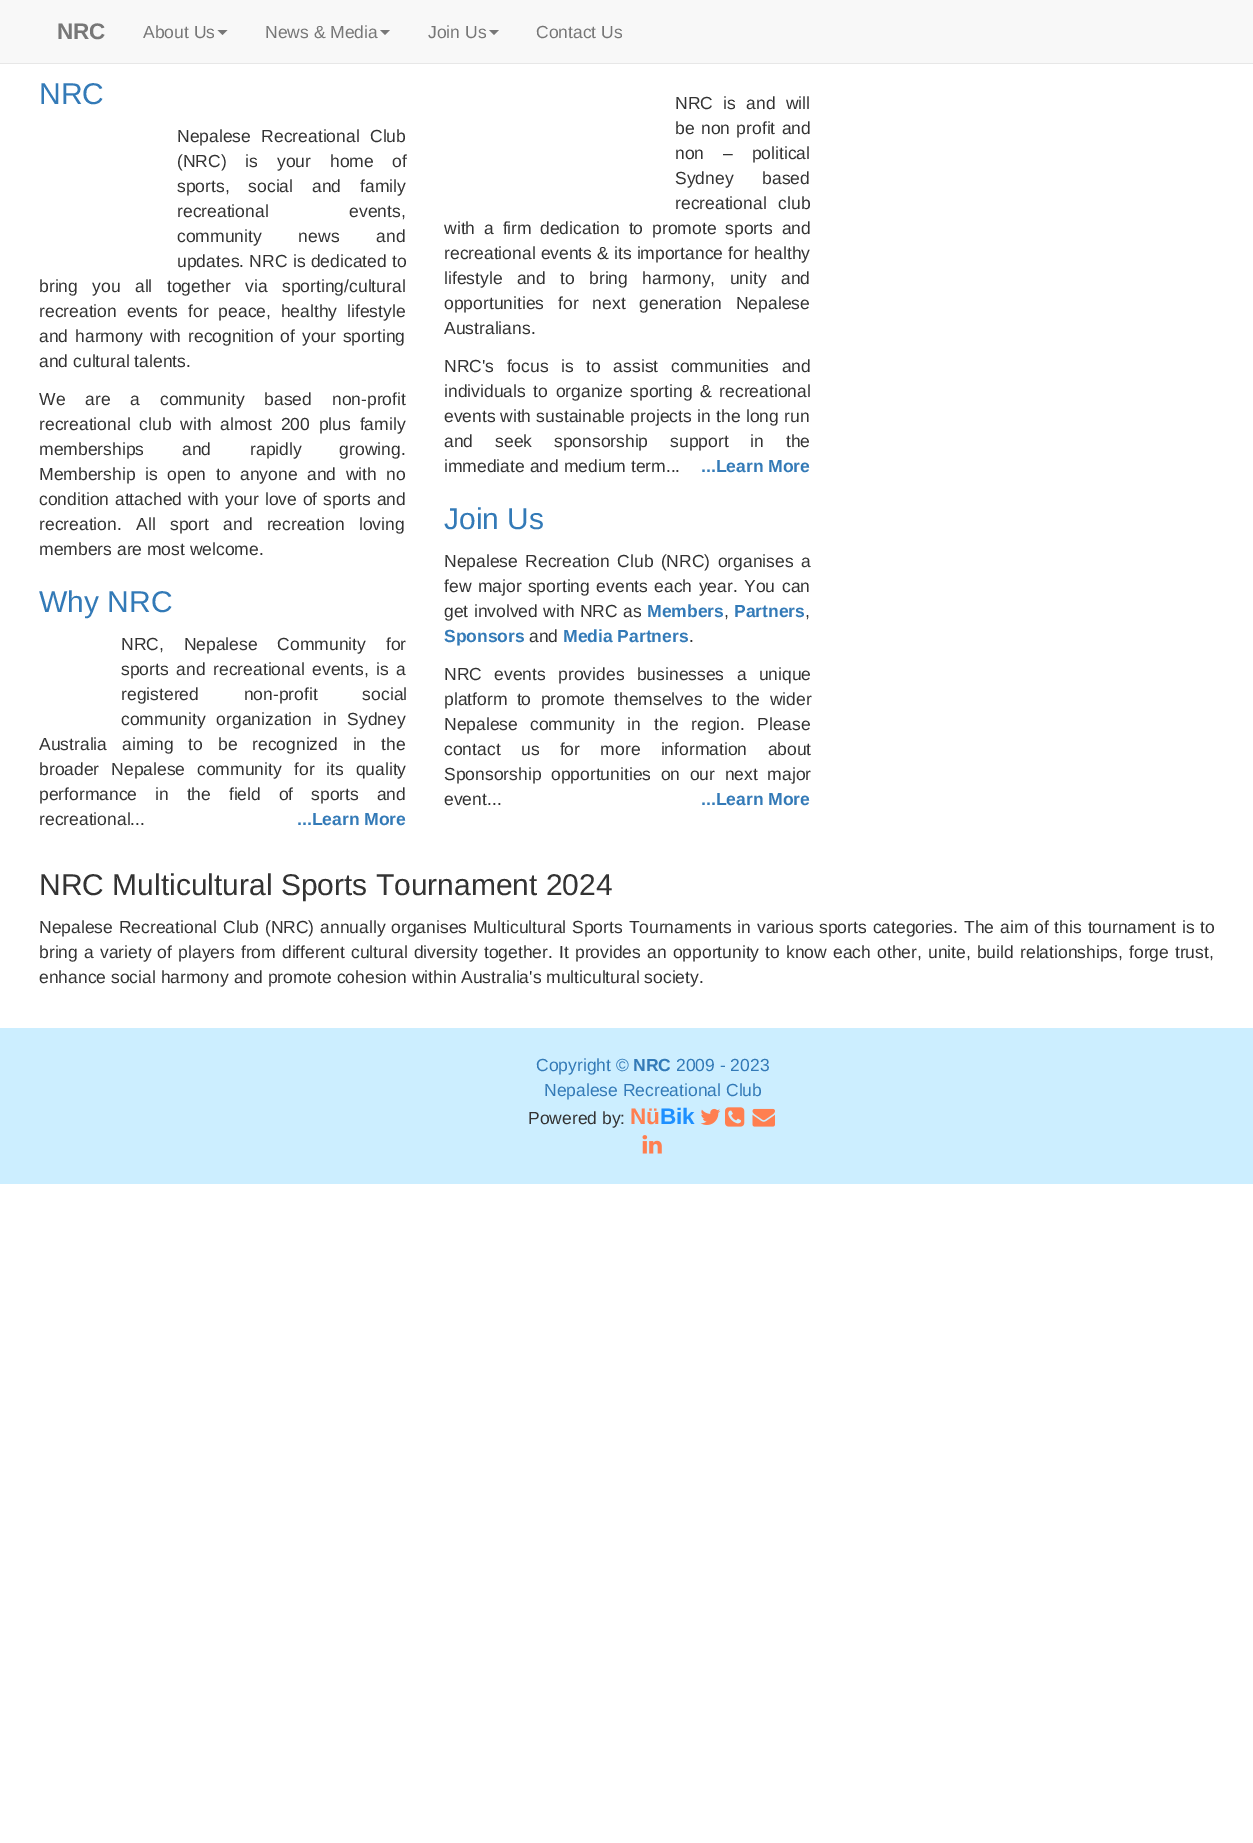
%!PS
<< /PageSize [1253 1843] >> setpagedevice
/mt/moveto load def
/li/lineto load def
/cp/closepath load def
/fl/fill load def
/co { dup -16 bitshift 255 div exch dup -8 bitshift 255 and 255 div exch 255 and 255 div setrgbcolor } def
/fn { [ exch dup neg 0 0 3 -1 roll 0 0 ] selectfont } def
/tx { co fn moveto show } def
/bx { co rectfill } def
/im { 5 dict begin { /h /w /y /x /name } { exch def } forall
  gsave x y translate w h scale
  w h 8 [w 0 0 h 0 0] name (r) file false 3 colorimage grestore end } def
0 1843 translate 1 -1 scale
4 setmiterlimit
0 0 1253 1843 16#FFFFFF bx
0 0 1253 63 16#F8F8F8 bx
0 63 1253 1 16#E7E7E7 bx
16#777777 co
217.5 30 mt 227.5 30 li 222.5 35 li cp fl
380 30 mt 390 30 li 385 35 li cp fl
489 30 mt 499 30 li 494 35 li cp fl
0 1028 1253 156 16#CCEEFF bx
(media/1.raw) 700 1108 21 17 im
(media/2.raw) 725 1107 20 20 im
(media/3.raw) 752 1108 23 19 im
(media/4.raw) 642 1135 20 19 im
(NRC) 57 39 /LiberationSans-Bold 22.5 16#777777 tx
(About Us) 143 38 /LiberationSans-Regular 17.5 16#777777 tx
(News & Media) 265 38 /LiberationSans-Regular 17.5 16#777777 tx
(Join Us) 428 38 /LiberationSans-Regular 17.5 16#777777 tx
(Contact Us) 536 38 /LiberationSans-Regular 17.5 16#777777 tx
(NRC) 39 104 /LiberationSans-Regular 30 16#337AB7 tx
/LiberationSans-Regular 17.5 fn
16#333333 co
177 142 mt 5.5 0 32 (Nepalese Recreational Club) widthshow
177 167 mt 14 0 32 (\(NRC\) is your home of) widthshow
177 192 mt 14 0 32 (sports, social and family) widthshow
177 217 mt 76 0 32 (recreational events,) widthshow
177 242 mt 32 0 32 (community news and) widthshow
177 267 mt .5 0 32 (updates. NRC is dedicated to) widthshow
39 292 mt 9.5 0 32 (bring you all together via sporting/cultural) widthshow
39 317 mt 5 0 32 (recreation events for peace, healthy lifestyle) widthshow
39 342 mt 2 0 32 (and harmony with recognition of your sporting) widthshow
(and cultural talents.) 39 367 /LiberationSans-Regular 17.5 16#333333 tx
39 405 mt 15 0 32 (We are a community based non-profit) widthshow
39 430 mt 4 0 32 (recreational club with almost 200 plus family) widthshow
39 455 mt 33 0 32 (memberships and) widthshow
250 455 mt 33 0 32 (rapidly growing.) widthshow
39 480 mt 4.75 0 32 (Membership is open to anyone and with no) widthshow
39 505 mt 1 0 32 (condition attached with your love of) widthshow
323 505 mt 1 0 32 (sports and) widthshow
39 530 mt 9.5 0 32 (recreation. All sport and recreation loving) widthshow
(members are most welcome.) 39 555 /LiberationSans-Regular 17.5 16#333333 tx
(Why NRC) 39 612 /LiberationSans-Regular 30 16#337AB7 tx
/LiberationSans-Regular 17.5 fn
16#333333 co
121 650 mt 15 0 32 (NRC, Nepalese Community for) widthshow
121 675 mt 2.75 0 32 (sports and recreational events, is a) widthshow
121 700 mt 40 0 32 (registered non-profit social) widthshow
121 725 mt 6 0 32 (community organization in Sydney) widthshow
39 750 mt 10 0 32 (Australia aiming to be recognized in the) widthshow
39 775 mt 7 0 32 (broader Nepalese community) widthshow
294 775 mt 7 0 32 (for its quality) widthshow
39 800 mt 13 0 32 (performance in the field of sports and) widthshow
(recreational...) 39 825 /LiberationSans-Regular 17.5 16#333333 tx
(...Learn More) 297 825 /LiberationSans-Bold 17.5 16#337AB7 tx
/LiberationSans-Regular 17.5 fn
16#333333 co
675 109 mt 5.5 0 32 (NRC is and will) widthshow
675 134 mt 1.5 0 32 (be non profit and) widthshow
675 159 mt 14 0 32 (non – political) widthshow
675 184 mt 24 0 32 (Sydney based) widthshow
675 209 mt 7 0 32 (recreational club) widthshow
444 234 mt 4 0 32 (with a firm) widthshow
540 234 mt 4 0 32 (dedication to promote sports and) widthshow
444 259 mt .25 0 32 (recreational events & its importance for healthy) widthshow
444 284 mt 9.5 0 32 (lifestyle and) widthshow
560 284 mt 9.5 0 32 (to bring harmony, unity and) widthshow
444 309 mt 9 0 32 (opportunities for next generation Nepalese) widthshow
(Australians.) 444 334 /LiberationSans-Regular 17.5 16#333333 tx
444 372 mt 7.75 0 32 (NRC's focus is to assist communities and) widthshow
444 397 mt 2.75 0 32 (individuals to organize sporting & recreational) widthshow
(events) 444 422 /LiberationSans-Regular 17.5 16#333333 tx
500 422 mt .5 0 32 (with sustainable projects in the long run) widthshow
444 447 mt 17 0 32 (and seek sponsorship support in the) widthshow
(immediate and medium term...) 444 472 /LiberationSans-Regular 17.5 16#333333 tx
(...Learn More) 701 472 /LiberationSans-Bold 17.5 16#337AB7 tx
(Join Us) 444 529 /LiberationSans-Regular 30 16#337AB7 tx
/LiberationSans-Regular 17.5 fn
16#333333 co
444 567 mt 2.5 0 32 (Nepalese Recreation Club \(NRC\) organises a) widthshow
444 592 mt 1.5 0 32 (few major sporting events each year.) widthshow
744 592 mt 2 0 32 (You can) widthshow
444 617 mt .5 0 32 (get involved with NRC as) widthshow
(Members) 647 617 /LiberationSans-Bold 17.5 16#337AB7 tx
(,) 724 617 /LiberationSans-Regular 17.5 16#333333 tx
(Partners) 734 617 /LiberationSans-Bold 17.5 16#337AB7 tx
(,) 805 617 /LiberationSans-Regular 17.5 16#333333 tx
(Sponsors) 444 642 /LiberationSans-Bold 17.5 16#337AB7 tx
(and) 529 642 /LiberationSans-Regular 17.5 16#333333 tx
(Media Partners) 563 642 /LiberationSans-Bold 17.5 16#337AB7 tx
(.) 689 642 /LiberationSans-Regular 17.5 16#333333 tx
444 680 mt 7.5 0 32 (NRC events provides businesses a unique) widthshow
444 705 mt 4.5 0 32 (platform to promote themselves to the wider) widthshow
(Nepalese) 444 730 /LiberationSans-Regular 17.5 16#333333 tx
530 730 mt 8 0 32 (community in the region.) widthshow
(Please) 757 730 /LiberationSans-Regular 17.5 16#333333 tx
444 755 mt 15.5 0 32 (contact us for more information about) widthshow
444 780 mt 4.75 0 32 (Sponsorship opportunities on our next major) widthshow
(event...) 444 805 /LiberationSans-Regular 17.5 16#333333 tx
(...Learn More) 701 805 /LiberationSans-Bold 17.5 16#337AB7 tx
(NRC Multicultural Sports Tournament 2024) 39 895 /LiberationSans-Regular 30 16#333333 tx
/LiberationSans-Regular 17.5 fn
39 933 mt 1 0 32 (Nepalese Recreational Club \(NRC\) annually organises Multicultural Sports Tournaments in various) widthshow
819 933 mt 1 0 32 (sports categories. The aim of this tournament is to) widthshow
39 958 mt 1.25 0 32 (bring a variety of players from different) widthshow
351 958 mt 1.25 0 32 (cultural diversity together. It provides an opportunity to know each other, unite, build) widthshow
1020 958 mt 1 0 32 (relationships, forge trust,) widthshow
(enhance social harmony and promote cohesion within Australia's multicultural society.) 39 983 /LiberationSans-Regular 17.5 16#333333 tx
(Copyright ©) 536 1071 /LiberationSans-Regular 17.5 16#337AB7 tx
(NRC) 633 1071 /LiberationSans-Bold 17.5 16#337AB7 tx
(2009 - 2023) 676 1071 /LiberationSans-Regular 17.5 16#337AB7 tx
(Nepalese Recreational Club) 544 1096 /LiberationSans-Regular 17.5 16#337AB7 tx
(Powered by:) 528 1124 /LiberationSans-Regular 17.5 16#333333 tx
(Nü) 630 1124 /LiberationSans-Bold 22.5 16#FF7F50 tx
(Bik) 660 1124 /LiberationSans-Bold 22.5 16#1E90FF tx
showpage
